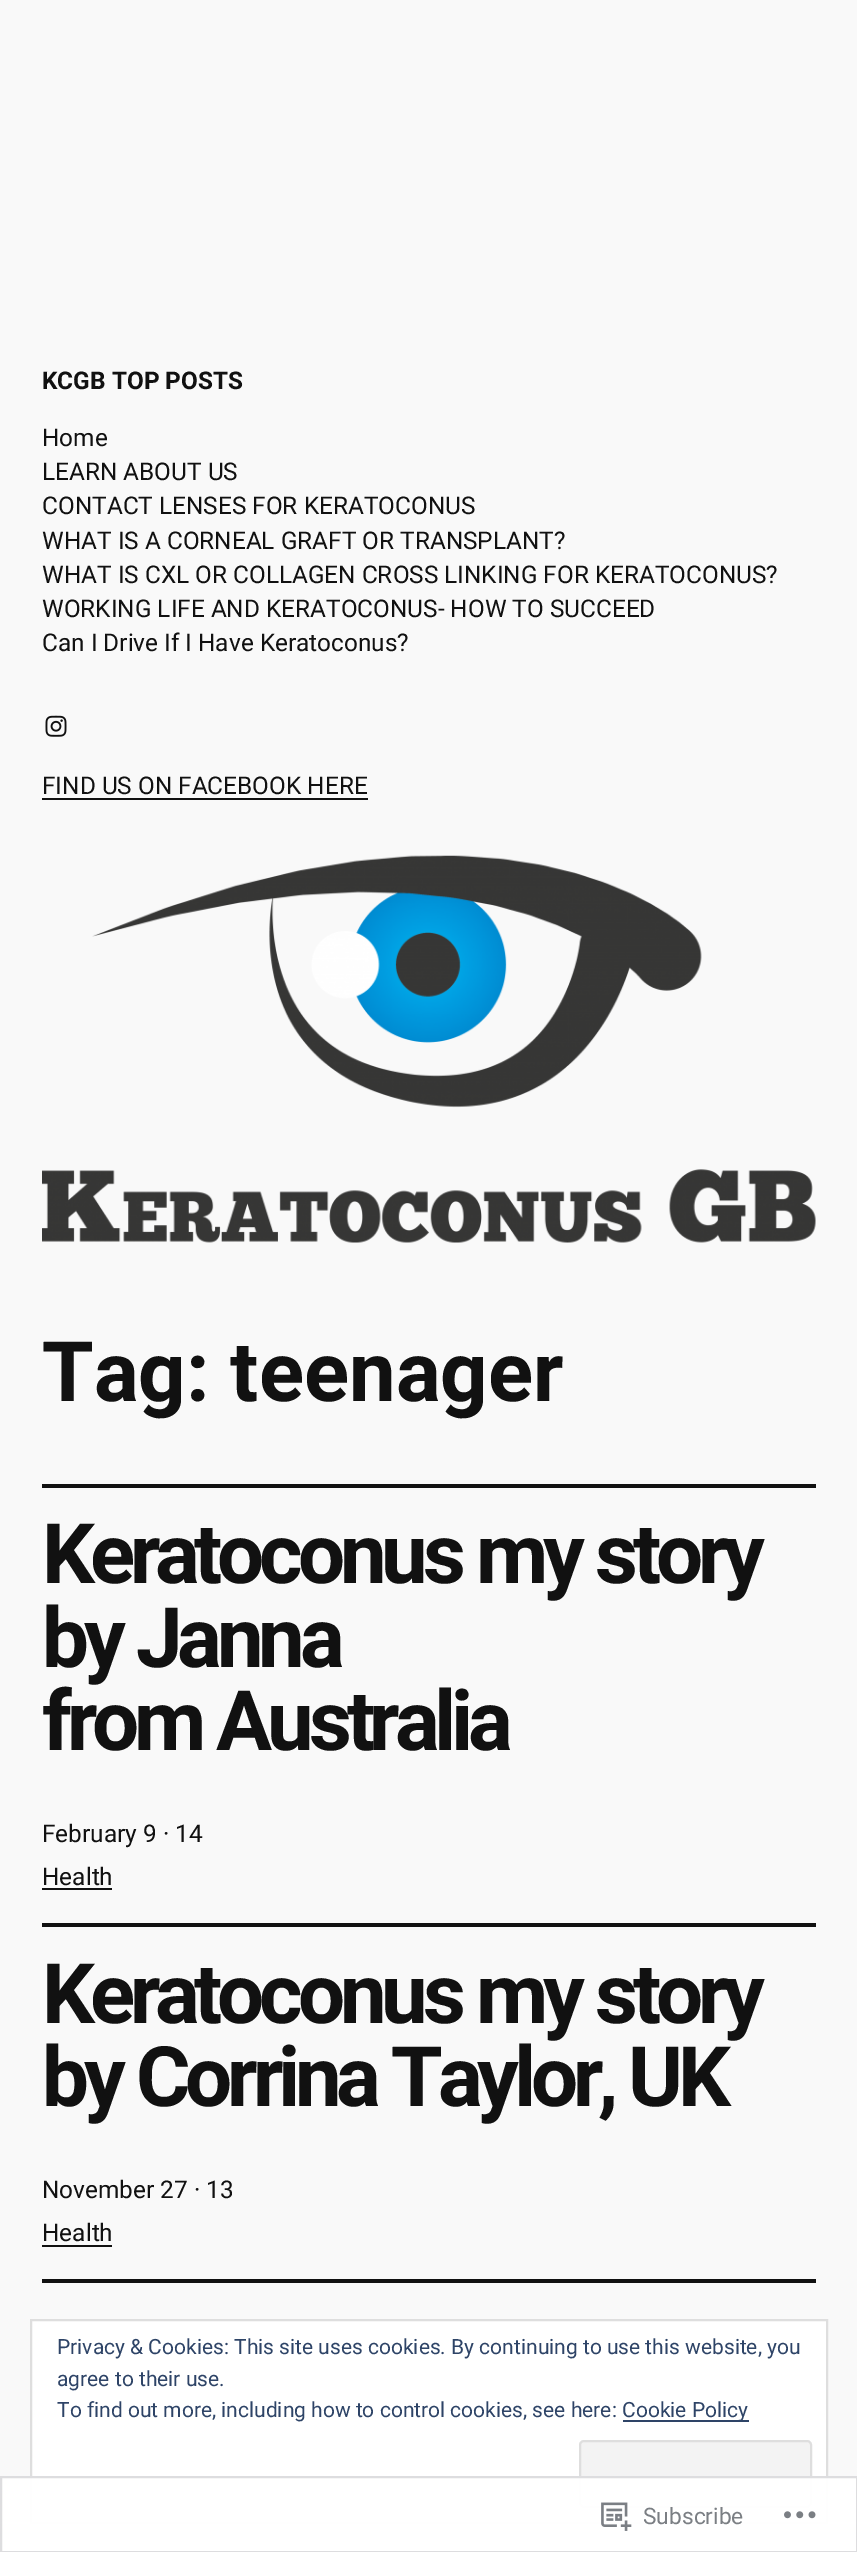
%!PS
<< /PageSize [857 2552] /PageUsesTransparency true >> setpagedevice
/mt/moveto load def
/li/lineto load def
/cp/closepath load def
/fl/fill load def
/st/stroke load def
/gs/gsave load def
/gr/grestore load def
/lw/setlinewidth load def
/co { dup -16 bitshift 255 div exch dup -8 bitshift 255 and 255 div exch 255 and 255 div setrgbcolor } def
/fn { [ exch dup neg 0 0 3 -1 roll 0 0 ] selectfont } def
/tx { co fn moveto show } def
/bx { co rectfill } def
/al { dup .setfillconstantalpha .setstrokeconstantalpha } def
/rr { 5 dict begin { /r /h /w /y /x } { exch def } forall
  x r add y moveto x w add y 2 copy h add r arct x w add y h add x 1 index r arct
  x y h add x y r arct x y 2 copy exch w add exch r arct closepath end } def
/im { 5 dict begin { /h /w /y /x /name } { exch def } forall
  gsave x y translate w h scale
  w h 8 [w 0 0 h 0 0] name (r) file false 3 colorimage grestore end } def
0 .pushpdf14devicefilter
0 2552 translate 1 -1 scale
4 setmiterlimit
0 0 857 2552 16#F9F9F9 bx
(media/1.raw) 45 715 22 22 im
42 798 326 2 16#111111 bx
(media/2.raw) 42 855 774 388 im
42 1484 774 4 16#111111 bx
42 1888 70 2 16#111111 bx
42 1923 774 4 16#111111 bx
42 2245 70 2 16#111111 bx
42 2279 774 4 16#111111 bx
16#FFFFFF co
31 2320 mt 827 2320 li 827 2523 li 31 2523 li cp gs fl gr
16#DEDEDE co
2 lw
st
623 2420 126 2 16#2E4467 bx
16#F3F3F3 co
580 2441 231 66 4 rr gs fl gr
16#DEDEDE co
st
0.98 al
0 2476 857 76 16#FFFFFF bx
16#DCDCDE co
1 2477 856 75 rectstroke
1 al
(media/3.raw) 601 2502 31 29 im
(media/4.raw) 784 2511 32 8 im
(KCGB TOP POSTS) 42 389 /Roboto-Bold 24.4 16#111111 tx
(Home) 42 446 /Roboto-Regular 24.4 16#111111 tx
(LEARN ABOUT US) 42 480 /Roboto-Regular 24.4 16#111111 tx
(CONTACT LENSES FOR KERATOCONUS) 42 514 /Roboto-Regular 24.4 16#111111 tx
(WHAT IS A CORNEAL GRAFT OR TRANSPLANT?) 42 549 /Roboto-Regular 24.4 16#111111 tx
(WHAT IS CXL OR COLLAGEN CROSS LINKING FOR KERATOCONUS?) 42 583 /Roboto-Regular 24.4 16#111111 tx
(WORKING LIFE AND KERATOCONUS- HOW TO SUCCEED) 42 617 /Roboto-Regular 24.4 16#111111 tx
(Can I Drive If I Have Keratoconus?) 42 651 /Roboto-Regular 24.4 16#111111 tx
(FIND US ON FACEBOOK HERE) 42 794 /Roboto-Regular 24.4 16#111111 tx
(Tag: teenager) 42 1401 /Roboto-Bold 83.5 16#111111 tx
42 1583 mt -5.25 0 (Keratoconus my story) ashow
42 1667 mt -5.25 0 (by Janna) ashow
42 1750 mt -5.25 0 (from Australia) ashow
(February 9 · 14) 42 1842 /Roboto-Regular 24.4 16#111111 tx
(Health) 42 1885 /Roboto-Regular 24.4 16#111111 tx
/Roboto-Bold 83.5 fn
42 2023 mt -5.25 0 (Keratoconus my story) ashow
42 2106 mt -5.25 0 (by Corrina Taylor, UK) ashow
(November 27 · 13) 42 2198 /Roboto-Regular 24.4 16#111111 tx
(Health) 42 2241 /Roboto-Regular 24.4 16#111111 tx
(Privacy & Cookies: This site uses cookies. By continuing to use this website, you) 57 2354 /Roboto-Regular 21 16#2E4467 tx
(agree to their use.) 57 2386 /Roboto-Regular 21 16#2E4467 tx
(To find out more, including how to control cookies, see here:) 57 2417 /Roboto-Regular 21 16#2E4467 tx
(Cookie Policy) 622 2417 /Roboto-Regular 21 16#2E4467 tx
(Subscribe) 643 2524 /Roboto-Regular 22.75 16#7B7F84 tx
.poppdf14devicefilter showpage
